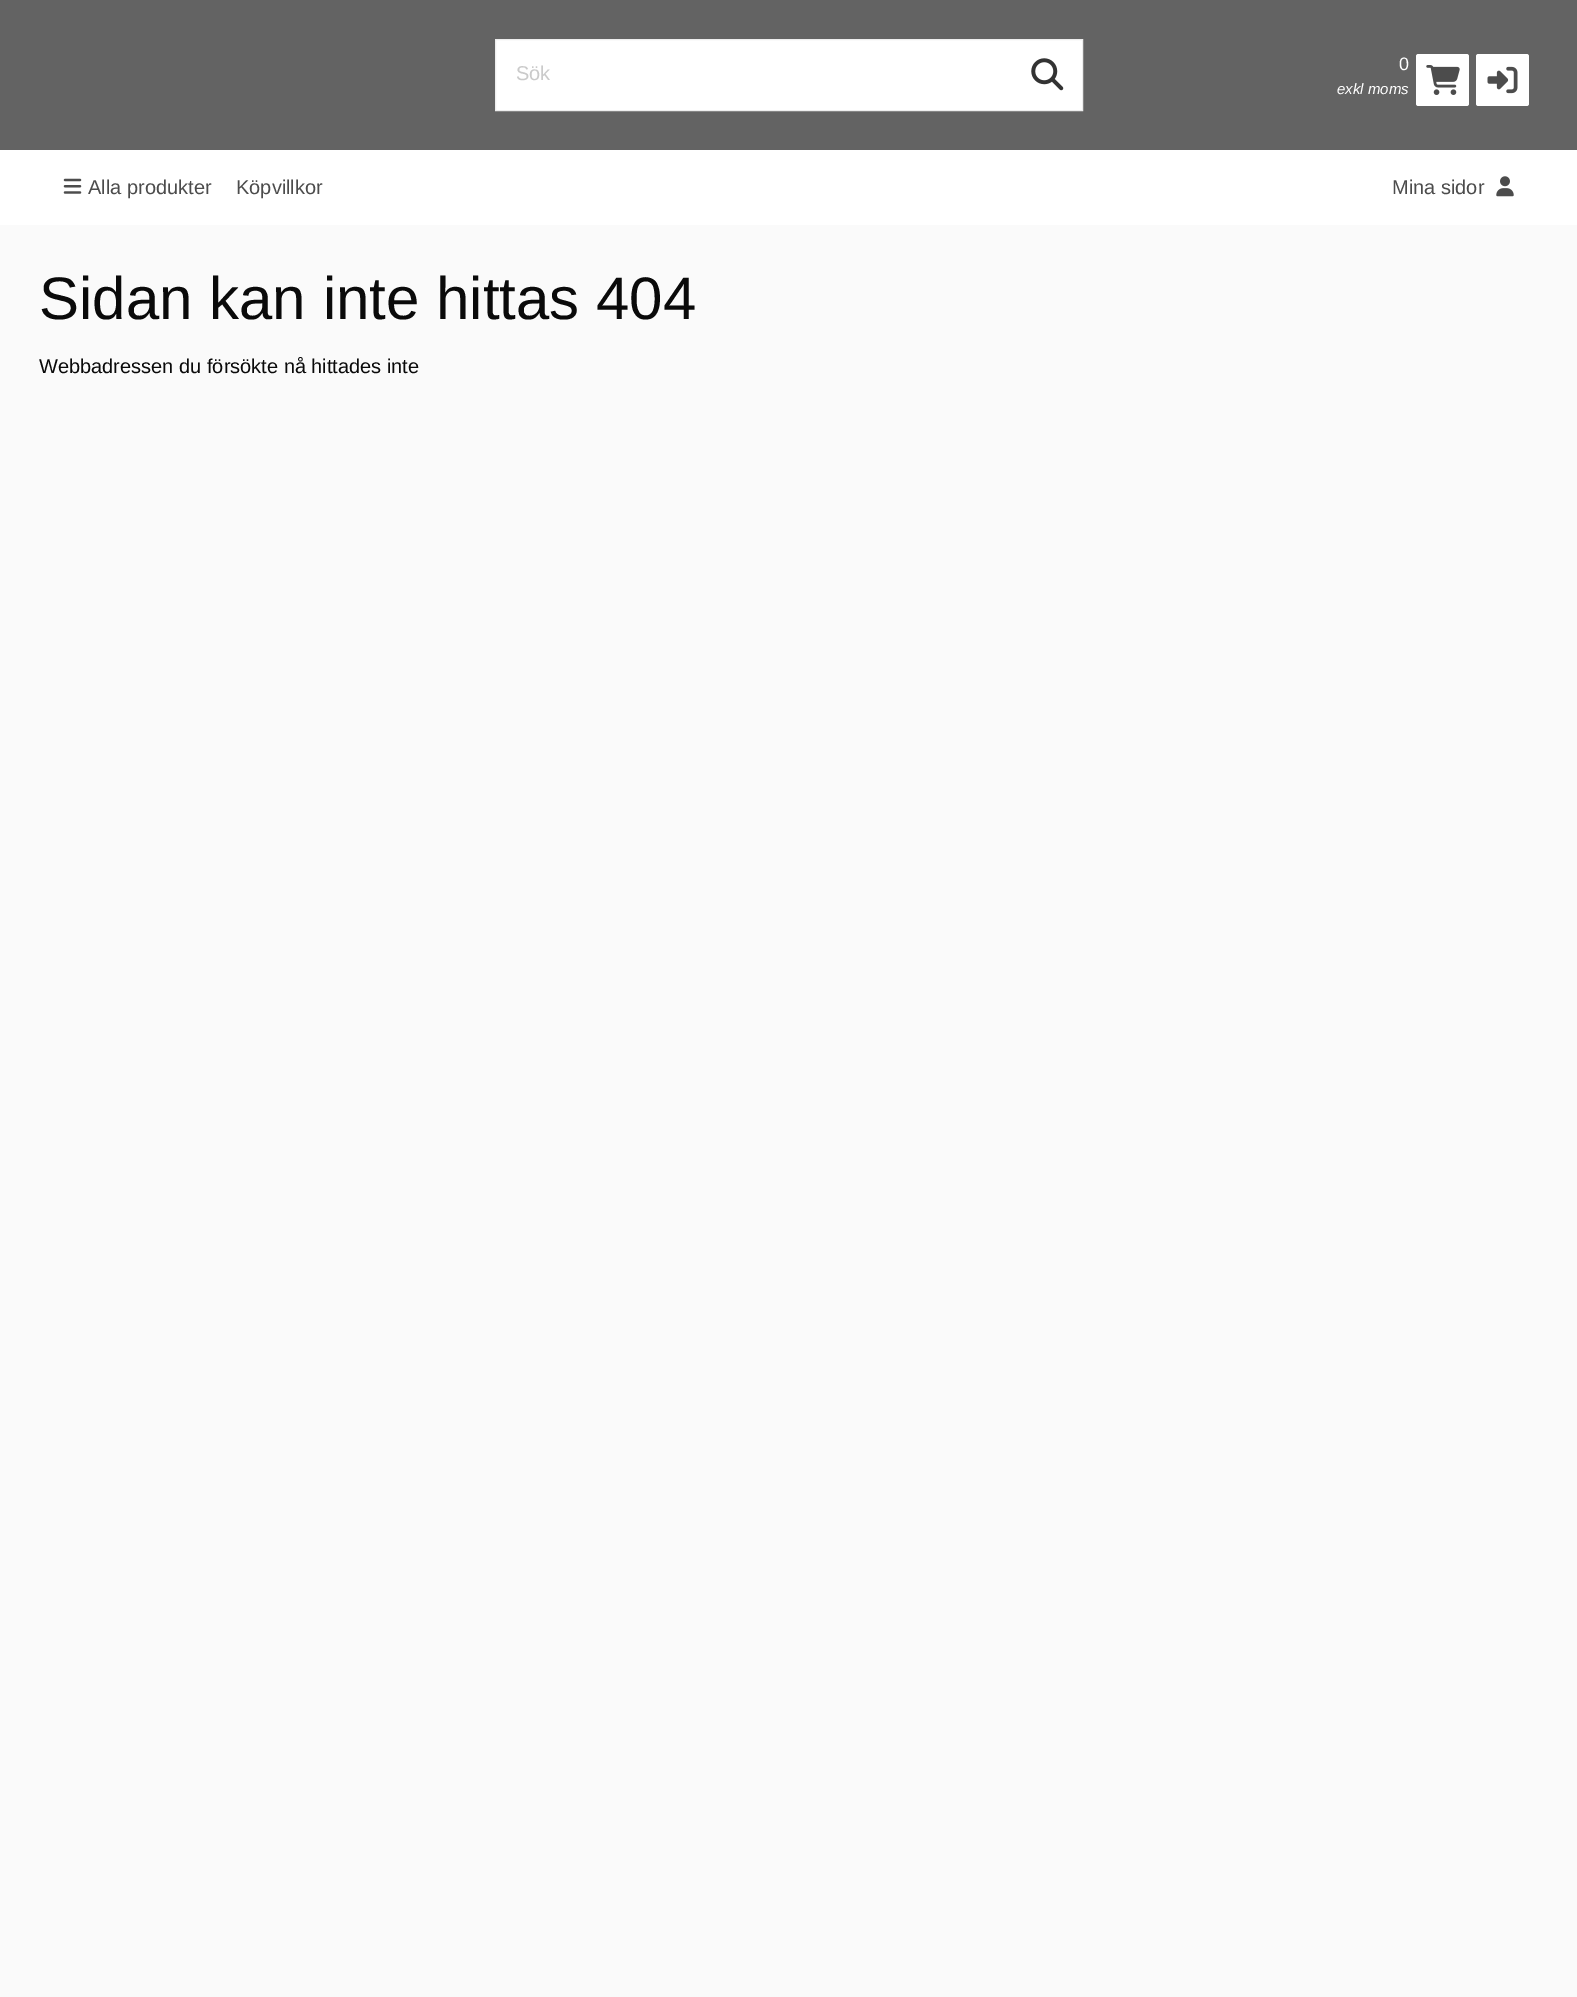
%!PS
<< /PageSize [1577 1997] >> setpagedevice
/mt/moveto load def
/li/lineto load def
/cp/closepath load def
/fl/fill load def
/st/stroke load def
/gs/gsave load def
/gr/grestore load def
/co { dup -16 bitshift 255 div exch dup -8 bitshift 255 and 255 div exch 255 and 255 div setrgbcolor } def
/fn { [ exch dup neg 0 0 3 -1 roll 0 0 ] selectfont } def
/tx { co fn moveto show } def
/bx { co rectfill } def
/rr { 5 dict begin { /r /h /w /y /x } { exch def } forall
  x r add y moveto x w add y 2 copy h add r arct x w add y h add x 1 index r arct
  x y h add x y r arct x y 2 copy exch w add exch r arct closepath end } def
/im { 5 dict begin { /h /w /y /x /name } { exch def } forall
  gsave x y translate w h scale
  w h 8 [w 0 0 h 0 0] name (r) file false 3 colorimage grestore end } def
0 1997 translate 1 -1 scale
4 setmiterlimit
0 0 1577 1997 16#FAFAFA bx
0 0 1577 150 16#636363 bx
16#FFFFFF co
495.5 39.5 mt 1082.5 39.5 li 1082.5 110.5 li 495.5 110.5 li cp gs fl gr
16#EEEEEE co
st
(media/1.raw) 1031 58 33 33 im
16#FFFFFF co
1416 54 53 52 2.5 rr fl
(media/2.raw) 1426 65 34 30 im
1476 54 53 52 2.5 rr fl
(media/3.raw) 1487 66 31 28 im
0 150 1577 75 16#FFFFFF bx
(media/4.raw) 63 178 19 16 im
(media/5.raw) 1496 176 18 21 im
(Sök) 516 80 /LiberationSans-Regular 20 16#CACACA tx
(0) 1399 70 /LiberationSans-Regular 18 16#FFFFFF tx
(exkl moms) 1337 94 /LiberationSans-Italic 15 16#FFFFFF tx
(Alla produkter) 88 194 /LiberationSans-Regular 20 16#4C4C4C tx
(Köpvillkor) 236 194 /LiberationSans-Regular 20 16#4C4C4C tx
(Mina sidor) 1392 194 /LiberationSans-Regular 20 16#4C4C4C tx
(Sidan kan inte hittas 404) 39 319 /LiberationSans-Regular 60 16#0A0A0A tx
(Webbadressen du försökte nå hittades inte) 39 373 /LiberationSans-Regular 20 16#0A0A0A tx
showpage
